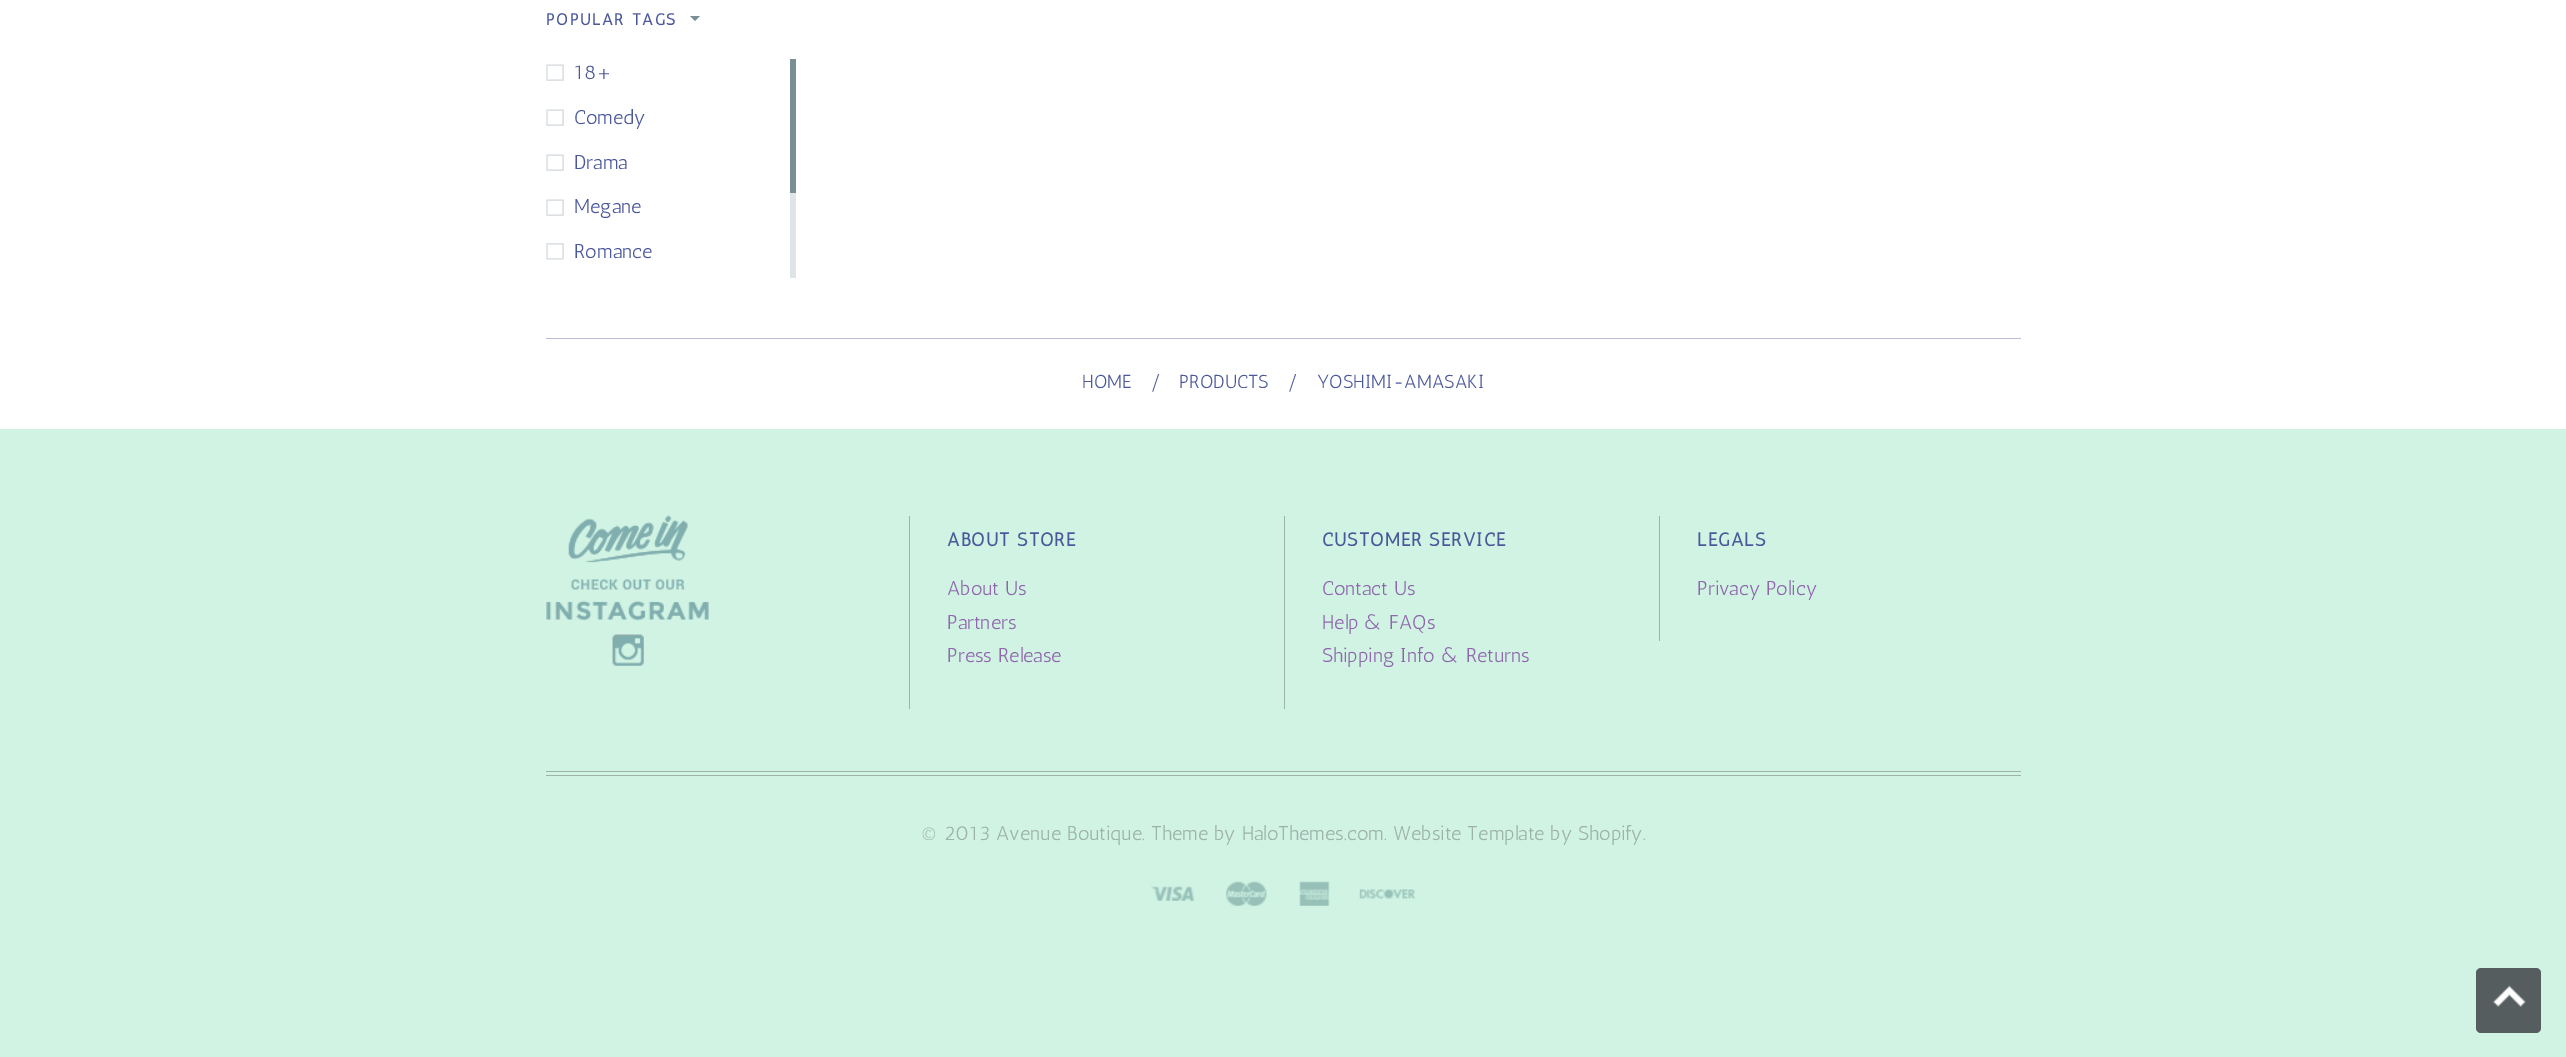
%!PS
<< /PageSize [2566 1057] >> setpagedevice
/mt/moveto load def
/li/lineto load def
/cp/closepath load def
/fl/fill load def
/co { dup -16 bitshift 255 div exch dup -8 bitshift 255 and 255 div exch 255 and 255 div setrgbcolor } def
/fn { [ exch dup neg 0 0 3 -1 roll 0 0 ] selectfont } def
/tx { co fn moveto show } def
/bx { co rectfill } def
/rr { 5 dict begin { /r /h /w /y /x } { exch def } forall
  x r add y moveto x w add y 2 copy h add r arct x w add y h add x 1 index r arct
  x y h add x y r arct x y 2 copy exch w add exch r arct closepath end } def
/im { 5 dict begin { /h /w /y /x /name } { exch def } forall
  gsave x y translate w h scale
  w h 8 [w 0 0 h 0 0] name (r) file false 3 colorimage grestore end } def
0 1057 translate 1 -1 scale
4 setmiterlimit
0 0 2566 1057 16#FFFFFF bx
16#7A8E95 co
690 16 mt 700 16 li 695 21 li cp fl
(media/1.raw) 546 64 18 17 im
(media/1.raw) 546 109 18 17 im
(media/1.raw) 546 154 18 17 im
(media/1.raw) 546 199 18 17 im
(media/2.raw) 546 243 18 17 im
546 338 1475 1 16#C3B8D9 bx
0 429 2566 628 16#D0F3E4 bx
546 771 1475 1 16#9DB2A9 bx
(media/3.raw) 546 515 163 151 im
909 516 1 193 16#9DB2A9 bx
1284 516 1 193 16#9DB2A9 bx
1659 516 1 125 16#9DB2A9 bx
546 775 1475 1 16#9DB2A9 bx
(media/4.raw) 1151 886 44 15 im
(media/5.raw) 1226 881 41 25 im
(media/6.raw) 1299 881 31 25 im
(media/7.raw) 1359 889 57 10 im
16#565D5F co
2476 968 65 65 5 rr fl
(media/8.raw) 2493 985 33 22 im
790 193 6 85 16#DFE4E6 bx
790 59 6 134 16#7A8E95 bx
/Antic-Bold 16.25 fn
16#4B589B co
546 25 mt 1.6 0 (POPULAR TAGS) ashow
(18+) 574 79 /Antic-Regular 20 16#4B589B tx
(Comedy) 574 124 /Antic-Regular 20 16#4B589B tx
(Drama) 574 169 /Antic-Regular 20 16#4B589B tx
(Megane) 574 213 /Antic-Regular 20 16#4B589B tx
(Romance) 574 258 /Antic-Regular 20 16#4B589B tx
(HOME) 1082 388 /Antic-Regular 18.75 16#4B589B tx
(/) 1150 388 /Antic-Regular 18.75 16#4B589B tx
(PRODUCTS) 1179 388 /Antic-Regular 18.75 16#4B589B tx
(/) 1287 388 /Antic-Regular 18.75 16#4B589B tx
(YOSHIMI-AMASAKI) 1317 388 /Antic-Regular 18.75 16#4B589B tx
/Antic-Bold 18.75 fn
947 546 mt 1 0 (ABOUT STORE) ashow
(About Us) 947 595 /Antic-Regular 20 16#9067AD tx
(Partners) 947 629 /Antic-Regular 20 16#9067AD tx
(Press Release) 947 662 /Antic-Regular 20 16#9067AD tx
/Antic-Bold 18.75 fn
16#4B589B co
1322 546 mt 1 0 (CUSTOMER SERVICE) ashow
(Contact Us) 1322 595 /Antic-Regular 20 16#9067AD tx
(Help & FAQs) 1322 629 /Antic-Regular 20 16#9067AD tx
(Shipping Info & Returns) 1322 662 /Antic-Regular 20 16#9067AD tx
/Antic-Bold 18.75 fn
16#4B589B co
1697 546 mt 1 0 (LEGALS) ashow
(Privacy Policy) 1697 595 /Antic-Regular 20 16#9067AD tx
(© 2013 Avenue Boutique. Theme by HaloThemes.com. Website Template by Shopify.) 921 840 /Antic-Regular 20 16#9DB2A9 tx
showpage
